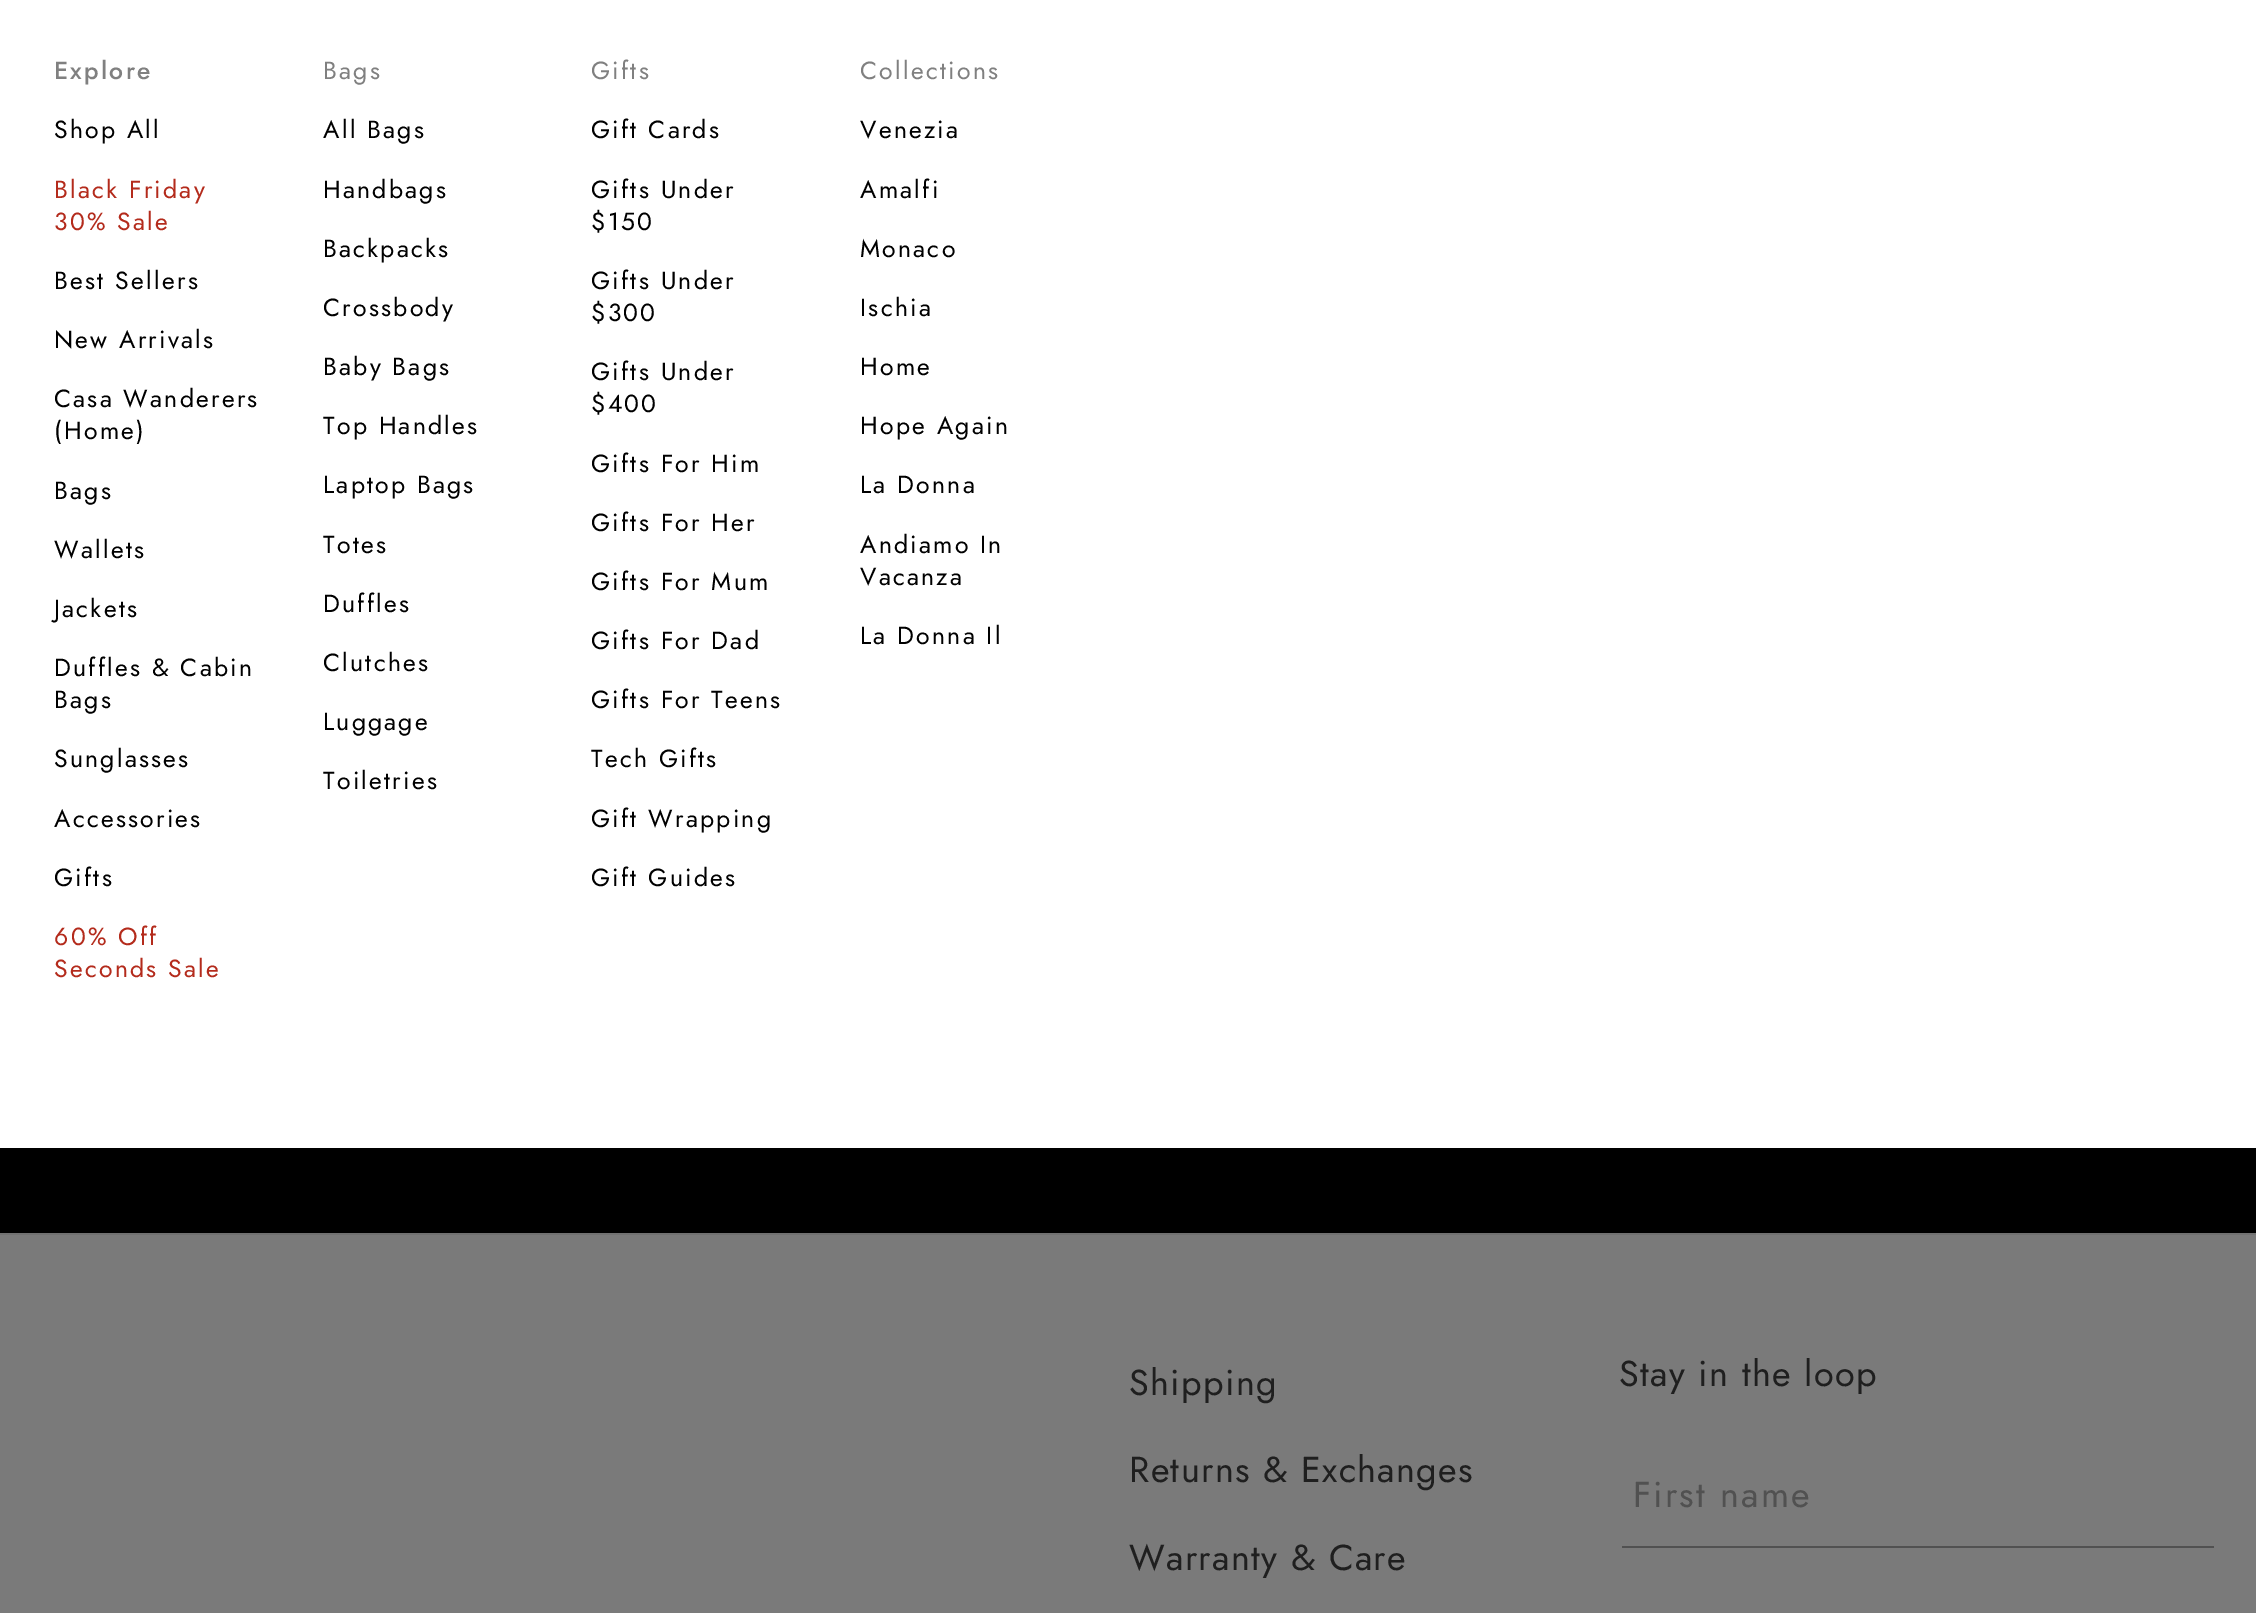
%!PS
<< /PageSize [2256 1613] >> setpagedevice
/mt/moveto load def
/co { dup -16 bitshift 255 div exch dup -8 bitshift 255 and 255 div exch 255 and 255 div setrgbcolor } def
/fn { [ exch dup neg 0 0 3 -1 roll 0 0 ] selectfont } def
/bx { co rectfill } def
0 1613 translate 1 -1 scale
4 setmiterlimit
0 0 2256 1613 16#7A7A7A bx
0 0 2256 1148 16#FFFFFF bx
0 1148 2256 85 16#000000 bx
0 1233 2256 2 16#717171 bx
1622 1546 592 2 16#515151 bx
/Jost-Medium 24.75 fn
16#808080 co
54 79 mt 2.25 0 (Explore) ashow
/Jost-Regular 24.75 fn
16#000000 co
54 138 mt 2.25 0 (Shop All) ashow
16#B42B1C co
54 198 mt 2.25 0 (Black Friday) ashow
54 230 mt 2.25 0 (30% Sale) ashow
16#000000 co
54 289 mt 2.25 0 (Best Sellers) ashow
54 348 mt 2.25 0 (New Arrivals) ashow
54 407 mt 2.25 0 (Casa Wanderers) ashow
54 439 mt 2.25 0 (\(Home\)) ashow
54 499 mt 2.25 0 (Bags) ashow
54 558 mt 2.25 0 (Wallets) ashow
54 617 mt 2.25 0 (Jackets) ashow
54 676 mt 2.25 0 (Duffles & Cabin) ashow
54 708 mt 2.25 0 (Bags) ashow
54 767 mt 2.25 0 (Sunglasses) ashow
54 827 mt 2.25 0 (Accessories) ashow
54 886 mt 2.25 0 (Gifts) ashow
16#B42B1C co
54 945 mt 2.25 0 (60% Off) ashow
54 977 mt 2.25 0 (Seconds Sale) ashow
16#808080 co
323 79 mt 2.25 0 (Bags) ashow
16#000000 co
323 138 mt 2.25 0 (All Bags) ashow
323 198 mt 2.25 0 (Handbags) ashow
323 257 mt 2.25 0 (Backpacks) ashow
323 316 mt 2.25 0 (Crossbody) ashow
323 375 mt 2.25 0 (Baby Bags) ashow
323 434 mt 2.25 0 (Top Handles) ashow
323 493 mt 2.25 0 (Laptop Bags) ashow
323 553 mt 2.25 0 (Totes) ashow
323 612 mt 2.25 0 (Duffles) ashow
323 671 mt 2.25 0 (Clutches) ashow
323 730 mt 2.25 0 (Luggage) ashow
323 789 mt 2.25 0 (Toiletries) ashow
16#808080 co
591 79 mt 2.25 0 (Gifts) ashow
16#000000 co
591 138 mt 2.25 0 (Gift Cards) ashow
591 198 mt 2.25 0 (Gifts Under) ashow
591 230 mt 2.25 0 ($150) ashow
591 289 mt 2.25 0 (Gifts Under) ashow
591 321 mt 2.25 0 ($300) ashow
591 380 mt 2.25 0 (Gifts Under) ashow
591 412 mt 2.25 0 ($400) ashow
591 472 mt 2.25 0 (Gifts For Him) ashow
591 531 mt 2.25 0 (Gifts For Her) ashow
591 590 mt 2.25 0 (Gifts For Mum) ashow
591 649 mt 2.25 0 (Gifts For Dad) ashow
591 708 mt 2.25 0 (Gifts For Teens) ashow
591 767 mt 2.25 0 (Tech Gifts) ashow
591 827 mt 2.25 0 (Gift Wrapping) ashow
591 886 mt 2.25 0 (Gift Guides) ashow
16#808080 co
860 79 mt 2.25 0 (Collections) ashow
16#000000 co
860 138 mt 2.25 0 (Venezia) ashow
860 198 mt 2.25 0 (Amalfi) ashow
860 257 mt 2.25 0 (Monaco) ashow
860 316 mt 2.25 0 (Ischia) ashow
860 375 mt 2.25 0 (Home) ashow
860 434 mt 2.25 0 (Hope Again) ashow
860 493 mt 2.25 0 (La Donna) ashow
860 553 mt 2.25 0 (Andiamo In) ashow
860 585 mt 2.25 0 (Vacanza) ashow
860 644 mt 2.25 0 (La Donna Il) ashow
/Jost-Regular 36 fn
16#1F1F1F co
1129 1395 mt 1.4 0 (Shipping) ashow
1129 1482 mt 1.4 0 (Returns & Exchanges) ashow
1129 1570 mt 1.4 0 (Warranty & Care) ashow
1619 1386 mt 1.4 0 (Stay in the loop) ashow
16#515151 co
1633 1507 mt 2.25 0 (First name) ashow
showpage
